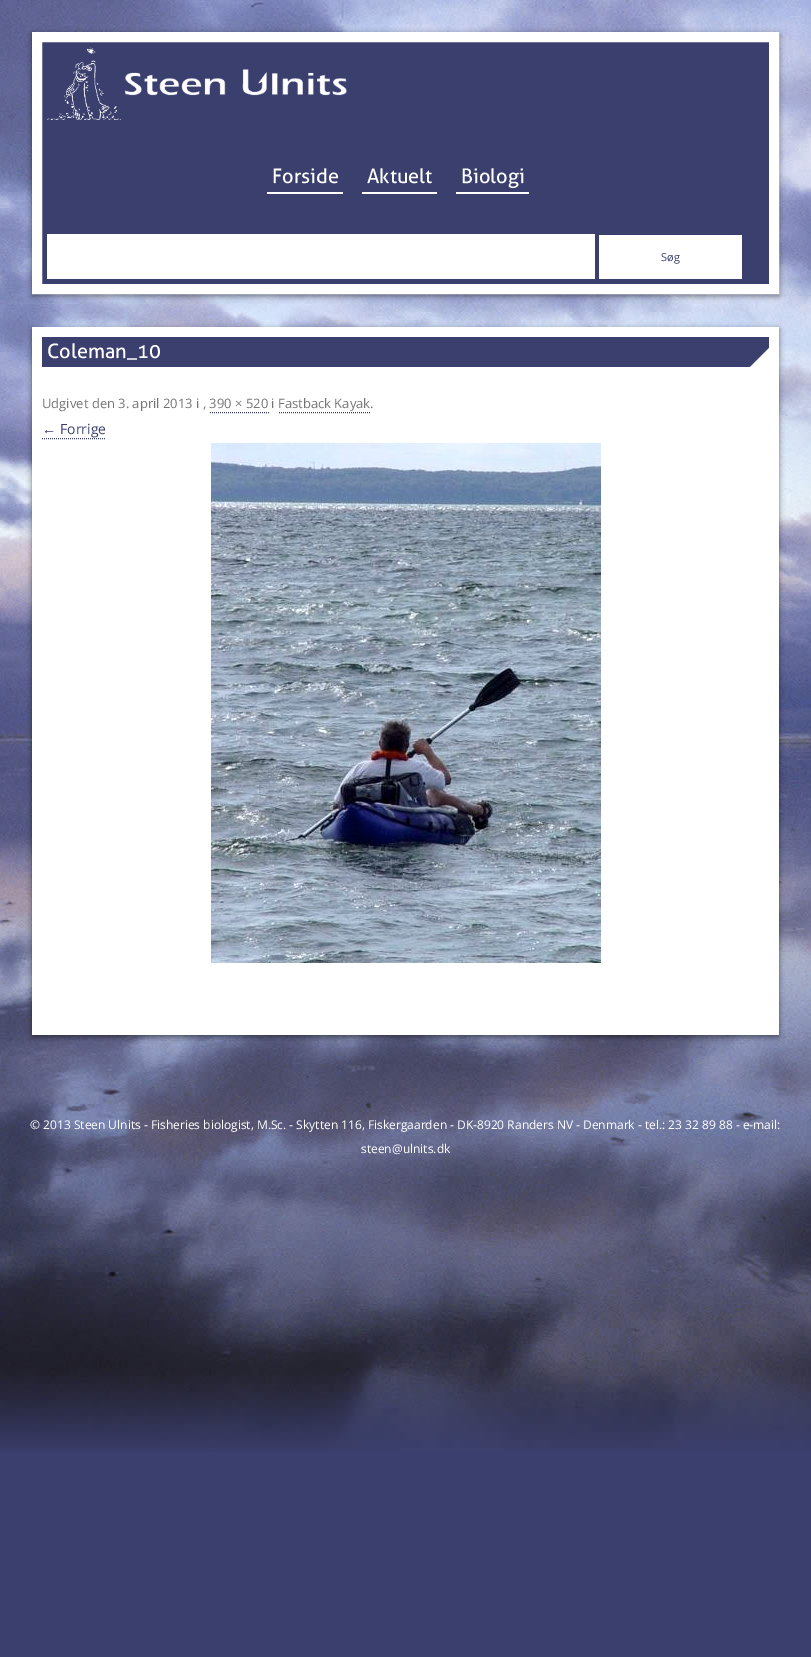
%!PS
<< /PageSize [811 1657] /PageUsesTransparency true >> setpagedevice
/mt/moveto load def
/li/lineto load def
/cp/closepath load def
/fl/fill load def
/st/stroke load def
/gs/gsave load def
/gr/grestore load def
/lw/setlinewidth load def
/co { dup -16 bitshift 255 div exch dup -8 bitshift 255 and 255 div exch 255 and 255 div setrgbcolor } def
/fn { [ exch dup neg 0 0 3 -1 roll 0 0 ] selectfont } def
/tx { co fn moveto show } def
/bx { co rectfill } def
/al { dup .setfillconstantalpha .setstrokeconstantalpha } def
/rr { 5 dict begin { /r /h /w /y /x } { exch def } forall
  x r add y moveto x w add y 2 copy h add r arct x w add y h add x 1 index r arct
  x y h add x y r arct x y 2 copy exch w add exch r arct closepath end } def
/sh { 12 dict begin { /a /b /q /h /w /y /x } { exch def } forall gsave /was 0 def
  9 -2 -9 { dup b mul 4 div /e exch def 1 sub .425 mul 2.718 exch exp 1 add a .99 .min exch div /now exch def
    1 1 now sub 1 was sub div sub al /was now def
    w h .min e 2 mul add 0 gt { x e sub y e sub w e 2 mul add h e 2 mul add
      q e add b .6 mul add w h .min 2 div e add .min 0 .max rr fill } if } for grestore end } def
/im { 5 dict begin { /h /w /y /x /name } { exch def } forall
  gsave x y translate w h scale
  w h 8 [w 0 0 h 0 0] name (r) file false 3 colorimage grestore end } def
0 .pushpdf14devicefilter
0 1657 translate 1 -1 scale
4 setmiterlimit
0 0 811 1657 16#3A3F6E bx
(media/1.raw) 0 0 811 1452 im
16#000000 co
32 34 747 262 0 3 .5 sh
16#3A3F6E co
37 37 mt 774 37 li 774 289 li 37 289 li cp gs fl gr
16#FFFFFF co
10 lw
st
(media/2.raw) 47 47 300 73 im
267 192 76 2 16#FFFFFF bx
362 192 75 2 16#FFFFFF bx
456 192 73 2 16#FFFFFF bx
47 234 548 45 16#FFFFFF bx
599 235 143 44 16#FFFFFF bx
16#000000 co
32 329 747 708 0 3 .5 sh
32 327 747 708 16#FFFFFF bx
42 337 727 30 16#3A3F6E bx
(media/3.raw) 750 348 19 19 im
16#393F6D co
1 lw
[1 1] 0 setdash
210 412.5 mt 269 412.5 li st
279 412.5 mt 371 412.5 li st
42 438.5 mt 106 438.5 li st
(media/4.raw) 211 443 390 520 im
(Forside) 272 183 /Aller-Regular 20 16#FFFFFF tx
(Aktuelt) 367 183 /Aller-Regular 20 16#FFFFFF tx
(Biologi) 461 183 /Aller-Regular 20 16#FFFFFF tx
(Søg) 661 261 /OpenSans-Regular 11 16#393F6D tx
(Coleman_10) 47 358 /Aller-Regular 20 16#FFFFFF tx
(Udgivet den 3. april 2013 i , 390 × 520 i Fastback Kayak.) 42 408 /OpenSans-Regular 13 16#757575 tx
(←) 42 434 /LiberationSans-Regular 14 16#393F6D tx
(Forrige) 60 434 /OpenSans-Regular 14 16#393F6D tx
(© 2013 Steen Ulnits - Fisheries biologist, M.Sc. - Skytten 116, Fiskergaarden - DK-8920 Randers NV - Denmark - tel.: 23 32 89 88 - e-mail:) 30 1129 /OpenSans-Regular 12 16#FFFFFF tx
(steen@ulnits.dk) 361 1153 /OpenSans-Regular 12 16#FFFFFF tx
.poppdf14devicefilter showpage
